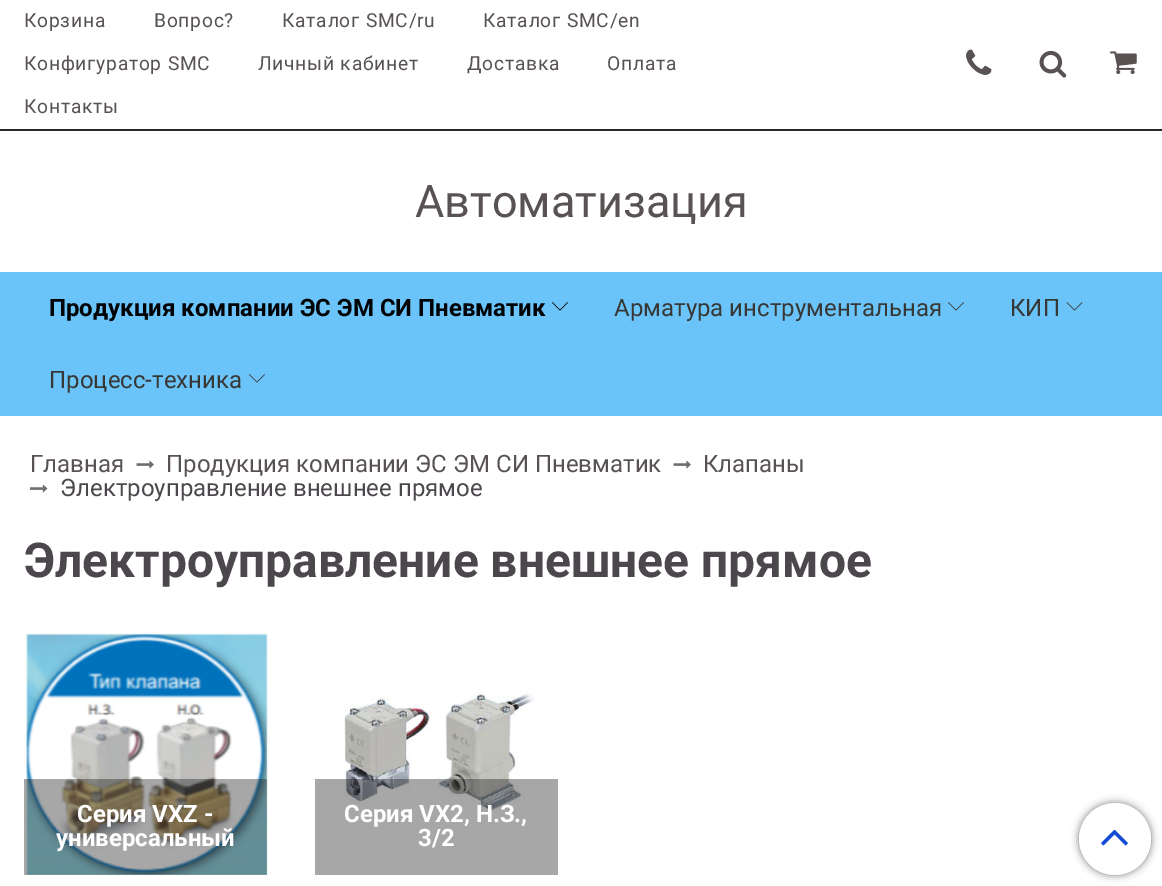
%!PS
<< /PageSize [1162 886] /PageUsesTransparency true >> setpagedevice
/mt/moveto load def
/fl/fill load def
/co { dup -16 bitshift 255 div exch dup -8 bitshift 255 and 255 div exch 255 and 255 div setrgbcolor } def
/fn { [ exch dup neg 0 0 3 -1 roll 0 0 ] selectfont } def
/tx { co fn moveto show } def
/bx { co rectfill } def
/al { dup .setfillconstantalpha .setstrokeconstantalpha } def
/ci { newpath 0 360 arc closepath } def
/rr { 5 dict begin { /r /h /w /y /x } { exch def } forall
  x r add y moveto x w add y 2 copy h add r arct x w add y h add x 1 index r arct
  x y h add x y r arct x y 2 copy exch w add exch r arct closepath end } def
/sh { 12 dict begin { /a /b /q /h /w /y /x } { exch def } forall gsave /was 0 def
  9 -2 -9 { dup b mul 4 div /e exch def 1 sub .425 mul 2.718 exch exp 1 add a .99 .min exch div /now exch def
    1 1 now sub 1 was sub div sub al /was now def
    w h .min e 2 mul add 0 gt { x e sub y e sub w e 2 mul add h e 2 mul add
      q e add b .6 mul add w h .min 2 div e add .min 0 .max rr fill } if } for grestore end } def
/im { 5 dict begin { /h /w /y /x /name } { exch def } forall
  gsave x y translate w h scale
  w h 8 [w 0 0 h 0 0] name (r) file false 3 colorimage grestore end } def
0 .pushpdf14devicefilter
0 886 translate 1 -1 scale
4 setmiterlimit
0 0 1162 886 16#FFFFFF bx
0 129 1162 2 16#282828 bx
(media/1.raw) 966 49 26 26 im
(media/2.raw) 1039 50 28 28 im
(media/3.raw) 1110 51 27 23 im
0 272 1162 144 16#6BC4F9 bx
(media/4.raw) 552 302 16 9 im
(media/5.raw) 948 302 16 9 im
(media/6.raw) 1066 302 17 9 im
(media/5.raw) 249 374 16 9 im
(media/7.raw) 136 460 18 9 im
(media/7.raw) 673 460 18 9 im
(media/8.raw) 30 484 18 9 im
(media/9.raw) 26 633 242 242 im
0.4 al
24 779 243 96 16#222222 bx
1 al
(media/10.raw) 344 691 190 120 im
0.4 al
315 779 243 96 16#222222 bx
1 al
16#777777 co
1079 803 72 72 36 4 1 sh
16#FFFFFF co
1115 839 36 ci fl
(media/11.raw) 1101 829 27 17 im
/Roboto-Regular 19.25 fn
16#585252 co
24 27 mt .75 0 (Корзина) ashow
154 27 mt .75 0 (Вопрос?) ashow
282 27 mt .75 0 (Каталог SMC/ru) ashow
483 27 mt .75 0 (Каталог SMC/en) ashow
24 70 mt .75 0 (Конфигуратор SMC) ashow
258 70 mt .75 0 (Личный кабинет) ashow
467 70 mt .75 0 (Доставка) ashow
607 70 mt .75 0 (Оплата) ashow
24 113 mt .75 0 (Контакты) ashow
(Автоматизация) 415 217 /Roboto-Regular 45 16#585252 tx
(Продукция компании ЭС ЭМ СИ Пневматик) 49 316 /Roboto-Bold 24 16#000204 tx
(Арматура инструментальная) 614 316 /Roboto-Regular 24 16#373735 tx
(КИП) 1010 316 /Roboto-Regular 24 16#373735 tx
(Процесс-техника) 49 388 /Roboto-Regular 24 16#373735 tx
(Главная) 30 472 /Roboto-Regular 24 16#585252 tx
(Продукция компании ЭС ЭМ СИ Пневматик) 166 472 /Roboto-Regular 24 16#585252 tx
(Клапаны) 703 472 /Roboto-Regular 24 16#585252 tx
(Электроуправление внешнее прямое) 60 496 /Roboto-Regular 24 16#4C474D tx
(Электроуправление внешнее прямое) 24 577 /Roboto-Bold 48 16#4C474D tx
(Серия VXZ -) 77 822 /Roboto-Bold 24 16#FFFFFF tx
(универсальный) 56 846 /Roboto-Bold 24 16#FFFFFF tx
(Серия VX2, Н.З.,) 344 822 /Roboto-Bold 24 16#FFFFFF tx
(3/2) 418 846 /Roboto-Bold 24 16#FFFFFF tx
.poppdf14devicefilter showpage
